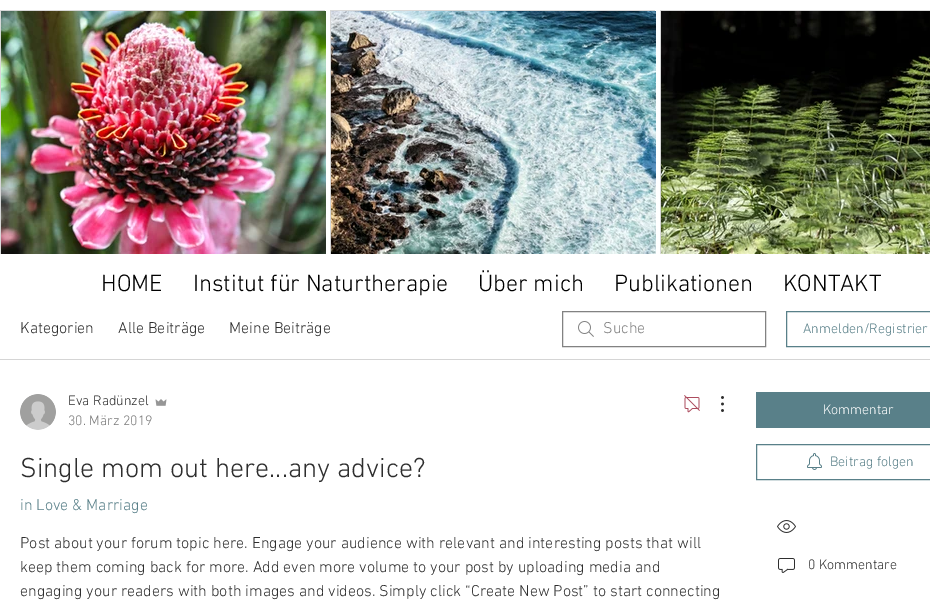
%!PS
<< /PageSize [930 609] >> setpagedevice
/co { dup -16 bitshift 255 div exch dup -8 bitshift 255 and 255 div exch 255 and 255 div setrgbcolor } def
/fn { [ exch dup neg 0 0 3 -1 roll 0 0 ] selectfont } def
/tx { co fn moveto show } def
/bx { co rectfill } def
/im { 5 dict begin { /h /w /y /x /name } { exch def } forall
  gsave x y translate w h scale
  w h 8 [w 0 0 h 0 0] name (r) file false 3 colorimage grestore end } def
0 609 translate 1 -1 scale
4 setmiterlimit
0 0 930 609 16#FFFFFF bx
0 10 325 244 16#D8D8D8 bx
(media/1.raw) 1 11 325 243 im
330 10 325 244 16#D8D8D8 bx
(media/2.raw) 331 11 325 243 im
660 10 270 244 16#D8D8D8 bx
(media/3.raw) 661 11 269 243 im
0 359 930 1 16#D5D5D5 bx
(media/4.raw) 578 321 16 16 im
16#828282 co
562.5 311.5 203 35 rectstroke
16#598089 co
786.5 311.5 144 35 rectstroke
(media/5.raw) 20 394 36 36 im
(media/6.raw) 155 399 12 7 im
(media/7.raw) 684 395 16 18 im
(media/8.raw) 721 396 3 16 im
756 392 174 36 16#598089 bx
756.5 444.5 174 35 rectstroke
(media/9.raw) 807 453 15 17 im
(media/10.raw) 777 520 19 13 im
(media/11.raw) 778 558 17 15 im
(HOME) 101 291 /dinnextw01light-Light 24 16#000000 tx
(Institut für Naturtherapie) 193 291 /dinnextw01light-Light 24 16#000000 tx
(Über mich) 478 291 /dinnextw01light-Light 24 16#000000 tx
(Publikationen) 614 291 /dinnextw01light-Light 24 16#000000 tx
(KONTAKT) 783 291 /dinnextw01light-Light 24 16#000000 tx
(Kategorien) 20 333 /dinnextw01light-Light 16 16#2E2E2E tx
(Alle Beiträge) 118 333 /dinnextw01light-Light 16 16#2E2E2E tx
(Meine Beiträge) 229 333 /dinnextw01light-Light 16 16#2E2E2E tx
(Suche) 603 333 /dinnextw01light-Light 16 16#828282 tx
(Anmelden/Registrier) 803 333 /dinnextw01light-Light 14 16#598089 tx
(Eva Radünzel) 68 405 /dinnextw01light-Light 14 16#2E2E2E tx
(30. März 2019) 68 425 /dinnextw01light-Light 14 16#797979 tx
(Single mom out here...any advice?) 20 477 /dinnextw01light-Light 28 16#2E2E2E tx
(in Love & Marriage) 20 510 /dinnextw01light-Light 16 16#598089 tx
(Post about your forum topic here. Engage your audience with relevant and interesting posts that will) 20 548 /dinnextw01light-Light 16 16#2E2E2E tx
(keep them coming back for more. Add even more volume to your post by uploading media and) 20 572 /dinnextw01light-Light 16 16#2E2E2E tx
(engaging your readers with both images and videos. Simply click “Create New Post” to start connecting) 20 596 /dinnextw01light-Light 16 16#2E2E2E tx
(Kommentar) 823 414 /dinnextw01light-Light 14 16#FFFFFF tx
(Beitrag folgen) 830 466 /dinnextw01light-Light 14 16#598089 tx
(0 Kommentare) 808 569 /dinnextw01light-Light 14 16#2E2E2E tx
showpage
